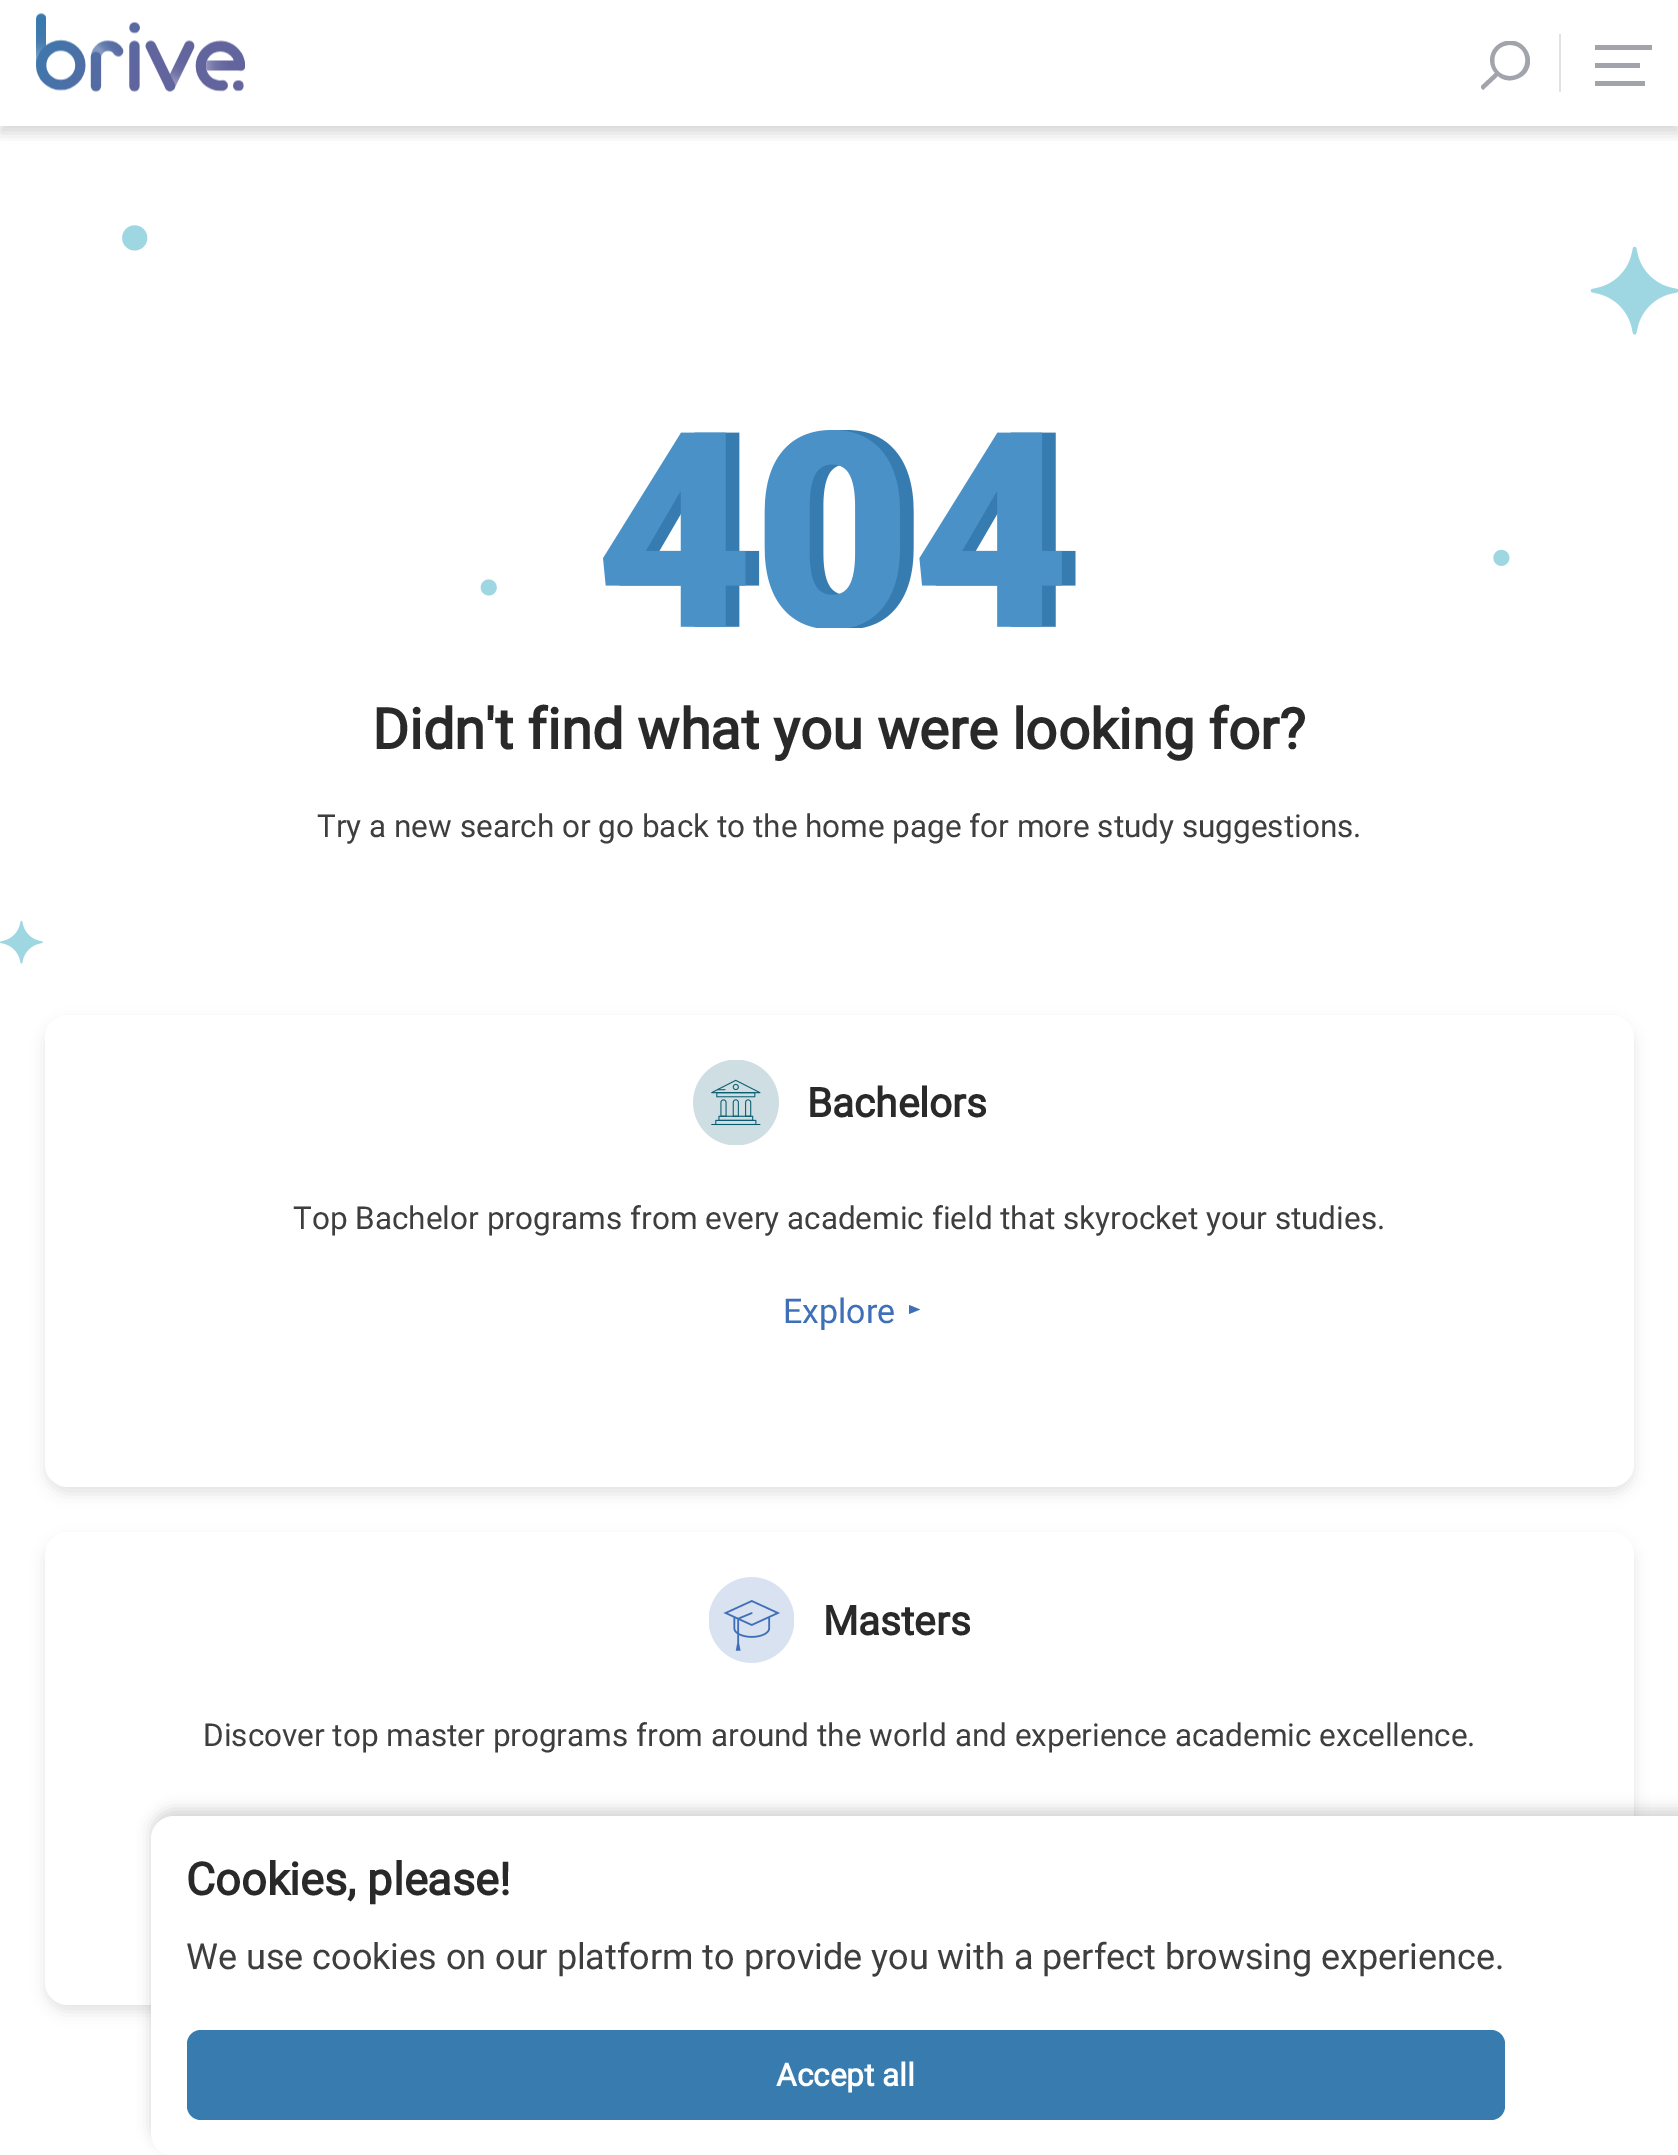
%!PS
<< /PageSize [1678 2155] /PageUsesTransparency true >> setpagedevice
/mt/moveto load def
/li/lineto load def
/ct/curveto load def
/cp/closepath load def
/fl/fill load def
/gs/gsave load def
/gr/grestore load def
/co { dup -16 bitshift 255 div exch dup -8 bitshift 255 and 255 div exch 255 and 255 div setrgbcolor } def
/fn { [ exch dup neg 0 0 3 -1 roll 0 0 ] selectfont } def
/tx { co fn moveto show } def
/bx { co rectfill } def
/al { dup .setfillconstantalpha .setstrokeconstantalpha } def
/rr { 5 dict begin { /r /h /w /y /x } { exch def } forall
  x r add y moveto x w add y 2 copy h add r arct x w add y h add x 1 index r arct
  x y h add x y r arct x y 2 copy exch w add exch r arct closepath end } def
/sh { 12 dict begin { /a /b /q /h /w /y /x } { exch def } forall gsave /was 0 def
  9 -2 -9 { dup b mul 4 div /e exch def 1 sub .425 mul 2.718 exch exp 1 add a .99 .min exch div /now exch def
    1 1 now sub 1 was sub div sub al /was now def
    w h .min e 2 mul add 0 gt { x e sub y e sub w e 2 mul add h e 2 mul add
      q e add b .6 mul add w h .min 2 div e add .min 0 .max rr fill } if } for grestore end } def
/im { 5 dict begin { /h /w /y /x /name } { exch def } forall
  gsave x y translate w h scale
  w h 8 [w 0 0 h 0 0] name (r) file false 3 colorimage grestore end } def
0 .pushpdf14devicefilter
0 2155 translate 1 -1 scale
4 setmiterlimit
0 0 1678 2155 16#FFFFFF bx
gs
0 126 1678 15 rectclip
16#000000 co
0 -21 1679 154 0 7 .16 sh
gr
(media/1.raw) 36 13 209 79 im
gs
1481 41 49 49 rectclip
16#A1A4AB co
1480 87 mt 1483 90 li 1498 76 li 1502 80 1508 81 1513 80 ct 1518 79 1522 77 1525 74 ct 1540 57 1519 31 1499 44 ct 1489 50 1487 64 1495 73 ct cp 1510 76 mt 1489 76 1489 45 1510 45 ct 1531 45 1530 76 1510 76 ct cp fl
gr
1559 34 2 58 16#E2E2E2 bx
1595 45 57 5 16#A1A4AB bx
1595 63 45 5 16#A1A4AB bx
1595 81 50 5 16#A1A4AB bx
(media/2.raw) 0 225 1678 739 im
(media/3.raw) 603 430 473 198 im
16#292929 co
45 1022 1589 472 23 7 .13 sh
16#FFFFFF co
45 1015 1589 472 23 rr fl
(media/4.raw) 693 1060 86 85 im
16#3F6FB7 co
909 1314 mt 909 1305 li 920 1309.5 li cp fl
16#292929 co
45 1539 1589 473 23 7 .13 sh
16#FFFFFF co
45 1532 1589 473 23 rr fl
(media/5.raw) 709 1577 85 86 im
16#000000 co
151 1809 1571 340 23 7 .16 sh
16#FFFFFF co
151 1816 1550 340 23 rr fl
16#377BAF co
187 2030 1318 90 14 rr fl
(Didn't find what you were looking for?) 372 749 /Roboto-Bold 56.25 16#292929 tx
(Try a new search or go back to the home page for more study suggestions.) 317 837 /Roboto-Regular 31.5 16#3E3E3E tx
(Bachelors) 807 1117 /Roboto-Bold 40.5 16#292929 tx
(Top Bachelor programs from every academic field that skyrocket your studies.) 293 1229 /Roboto-Regular 31.5 16#3E3E3E tx
(Explore) 783 1323 /Roboto-Regular 34 16#3F6FB7 tx
(Masters) 823 1635 /Roboto-Bold 40.5 16#292929 tx
(Discover top master programs from around the world and experience academic excellence.) 203 1746 /Roboto-Regular 31.5 16#3E3E3E tx
(Cookies, please!) 186 1895 /Roboto-Bold 45 16#292929 tx
(We use cookies on our platform to provide you with a perfect browsing experience.) 186 1969 /Roboto-Regular 36 16#3E3E3E tx
(Accept all) 776 2086 /Roboto-Bold 31.5 16#FFFFFF tx
.poppdf14devicefilter showpage
